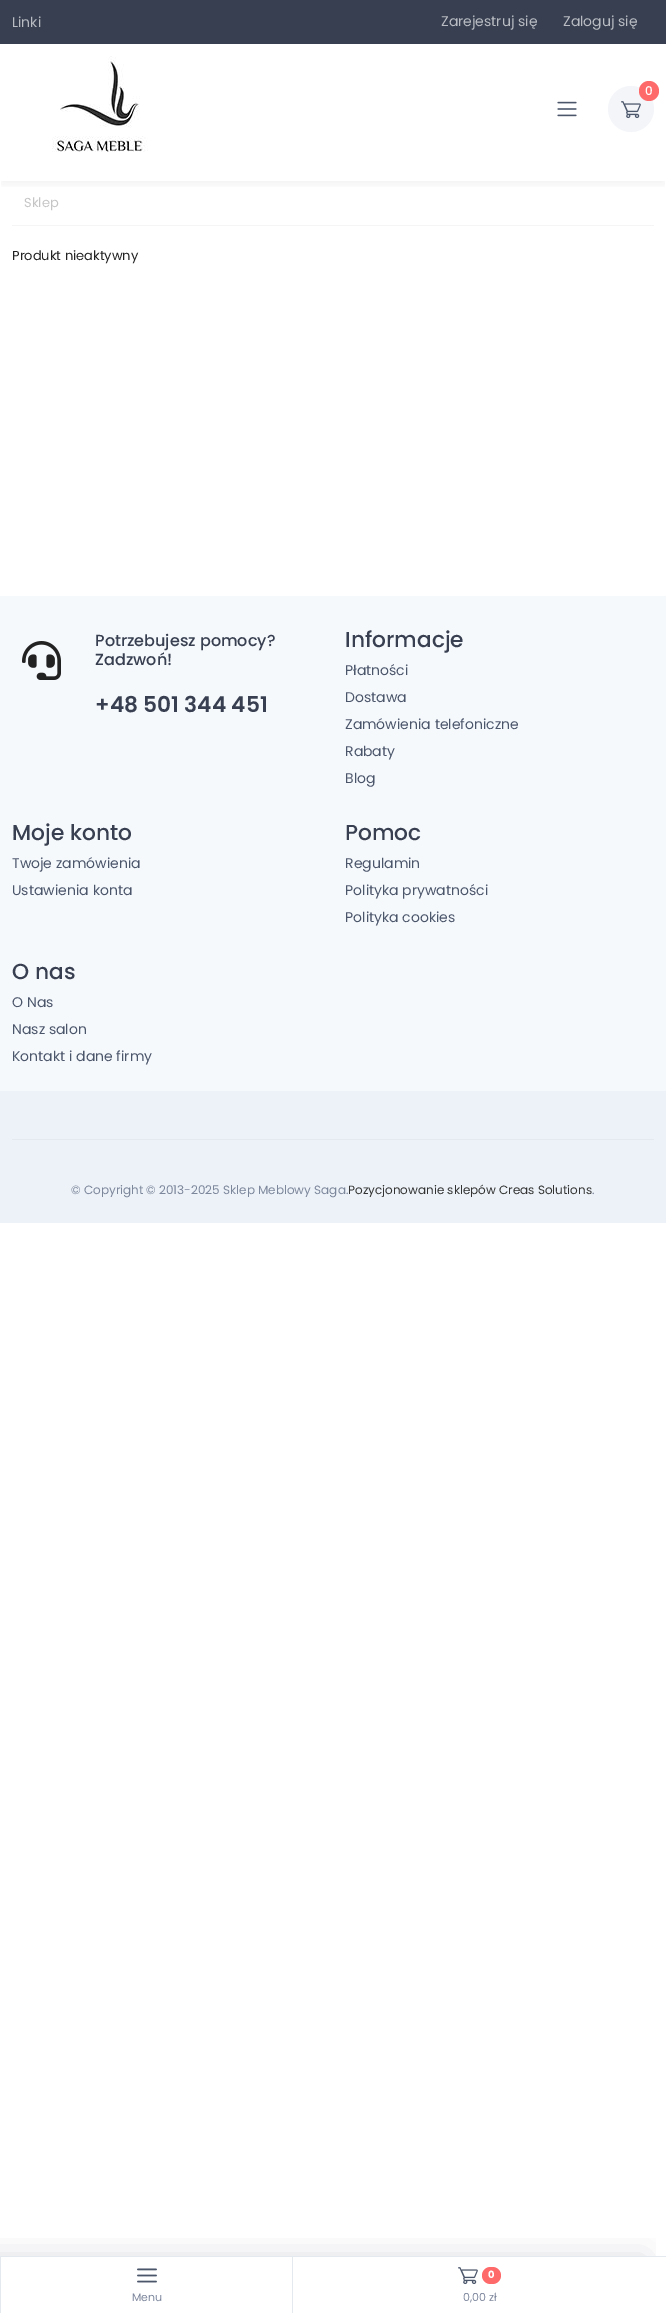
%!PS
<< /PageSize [666 2313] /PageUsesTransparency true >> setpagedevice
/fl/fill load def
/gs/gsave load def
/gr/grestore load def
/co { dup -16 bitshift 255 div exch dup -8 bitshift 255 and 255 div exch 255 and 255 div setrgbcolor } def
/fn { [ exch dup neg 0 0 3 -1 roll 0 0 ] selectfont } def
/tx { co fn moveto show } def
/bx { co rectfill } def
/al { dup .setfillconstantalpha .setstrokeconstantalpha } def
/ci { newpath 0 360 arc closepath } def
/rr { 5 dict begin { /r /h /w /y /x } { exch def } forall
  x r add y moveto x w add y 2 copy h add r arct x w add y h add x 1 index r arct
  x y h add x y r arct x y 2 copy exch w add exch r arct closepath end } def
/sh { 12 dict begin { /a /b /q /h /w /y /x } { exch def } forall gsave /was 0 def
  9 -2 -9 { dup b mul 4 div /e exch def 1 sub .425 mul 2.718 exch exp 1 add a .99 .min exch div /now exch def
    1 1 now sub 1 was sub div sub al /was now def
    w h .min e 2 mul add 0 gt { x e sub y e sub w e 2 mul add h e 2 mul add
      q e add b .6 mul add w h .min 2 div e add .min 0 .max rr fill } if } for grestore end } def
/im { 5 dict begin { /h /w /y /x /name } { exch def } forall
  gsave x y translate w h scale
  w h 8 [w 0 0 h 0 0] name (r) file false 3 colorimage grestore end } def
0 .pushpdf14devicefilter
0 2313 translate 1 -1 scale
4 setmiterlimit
0 0 666 2313 16#FFFFFF bx
gs
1 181 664 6 rectclip
16#000000 co
1 5 664 179 0 6 .06 sh
gr
0 0 666 44 16#373F50 bx
(media/1.raw) 52 56 96 96 im
16#F3F5F9 co
631 109 23 ci fl
16#FE696A co
649 91 10 ci fl
(media/2.raw) 621 101 20 18 im
(media/3.raw) 557 101 20 16 im
12 225 642 1 16#F5F5F5 bx
0 596 666 495 16#F6F9FC bx
(media/4.raw) 22 641 39 39 im
0 1091 666 132 16#ECF2F7 bx
12 1139 642 1 16#E3E9EF bx
gs
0 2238 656 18 rectclip
16#2B3445 co
-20 2256 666 57 0 16 .15 sh
gr
0 2256 666 1 16#E3E9EF bx
0 2257 1 56 16#E3E9EF bx
(media/5.raw) 137 2268 20 15 im
292 2257 1 56 16#E3E9EF bx
(media/6.raw) 458 2267 20 18 im
16#FE696A co
482 2267 19 17 8.5 rr fl
(Linki) 12 27 /Poppins-Regular 14 16#B9BCC2 tx
(Zarejestruj się) 441 26 /Poppins-Regular 14 16#B9BCC2 tx
(Zaloguj się) 563 26 /Poppins-Regular 14 16#B9BCC2 tx
(0) 645 95 /Poppins-Medium 12 16#FFFFFF tx
(Sklep) 24 207 /Poppins-Regular 13 16#C5C5C5 tx
(Produkt nieaktywny) 12 260 /Poppins-Regular 13 16#222222 tx
(Potrzebujesz pomocy?) 95 646 /Poppins-Medium 16 16#373F50 tx
(Zadzwoń!) 95 665 /Poppins-Medium 16 16#373F50 tx
(+48 501 344 451) 95 712 /Poppins-SemiBold 21.75 16#373F50 tx
(Informacje) 345 647 /Poppins-Medium 21.75 16#373F50 tx
(Płatności) 345 675 /Poppins-Regular 14 16#4B566B tx
(Dostawa) 345 702 /Poppins-Regular 14 16#4B566B tx
(Zamówienia telefoniczne) 345 729 /Poppins-Regular 14 16#4B566B tx
(Rabaty) 345 756 /Poppins-Regular 14 16#4B566B tx
(Blog) 345 783 /Poppins-Regular 14 16#4B566B tx
(Moje konto) 12 840 /Poppins-Medium 21.75 16#373F50 tx
(Twoje zamówienia) 12 868 /Poppins-Regular 14 16#4B566B tx
(Ustawienia konta) 12 895 /Poppins-Regular 14 16#4B566B tx
(Pomoc) 345 840 /Poppins-Medium 21.75 16#373F50 tx
(Regulamin) 345 868 /Poppins-Regular 14 16#4B566B tx
(Polityka prywatności) 345 895 /Poppins-Regular 14 16#4B566B tx
(Polityka cookies) 345 922 /Poppins-Regular 14 16#4B566B tx
(O nas) 12 979 /Poppins-Medium 21.75 16#373F50 tx
(O Nas) 12 1007 /Poppins-Regular 14 16#4B566B tx
(Nasz salon) 12 1034 /Poppins-Regular 14 16#4B566B tx
(Kontakt i dane firmy) 12 1061 /Poppins-Regular 14 16#4B566B tx
(© Copyright © 2013-2025 Sklep Meblowy Saga.) 71 1194 /Poppins-Regular 12 16#7D879C tx
(Pozycjonowanie sklepów Creas Solutions) 348 1194 /Poppins-Regular 12 16#333333 tx
(.) 592 1194 /Poppins-Regular 12 16#7D879C tx
(Menu) 132 2301 /Poppins-Regular 11 16#7D879C tx
(0) 488 2278 /Poppins-Bold 10 16#FFFFFF tx
(0,00 zł) 463 2301 /Poppins-Regular 11 16#7D879C tx
.poppdf14devicefilter showpage
